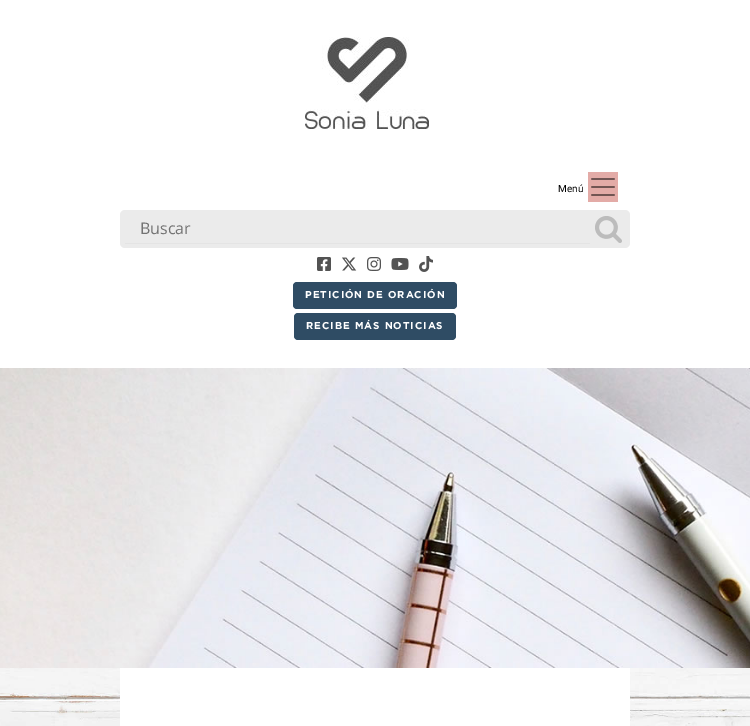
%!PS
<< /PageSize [750 726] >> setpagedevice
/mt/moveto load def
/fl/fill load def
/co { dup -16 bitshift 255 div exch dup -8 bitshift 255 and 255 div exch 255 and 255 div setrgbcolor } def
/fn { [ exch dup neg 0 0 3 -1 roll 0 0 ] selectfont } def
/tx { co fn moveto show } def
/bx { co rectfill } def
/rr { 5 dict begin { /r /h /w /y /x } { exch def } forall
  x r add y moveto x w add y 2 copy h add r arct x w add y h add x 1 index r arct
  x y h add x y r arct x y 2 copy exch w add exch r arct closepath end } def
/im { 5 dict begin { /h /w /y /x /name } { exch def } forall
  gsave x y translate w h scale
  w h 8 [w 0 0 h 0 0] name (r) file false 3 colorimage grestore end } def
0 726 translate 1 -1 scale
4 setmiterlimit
0 0 750 726 16#FFFFFF bx
(media/1.raw) 305 37 124 92 im
588 172 30 30 16#E3ABA7 bx
(media/2.raw) 591 178 24 18 im
16#EBEBEB co
120 210 510 38 5 rr fl
(media/3.raw) 595 216 27 27 im
125 243 465 1 16#E4E4E4 bx
(media/4.raw) 317 257 14 14 im
(media/5.raw) 342 257 15 14 im
(media/6.raw) 367 257 14 14 im
(media/7.raw) 391 258 18 12 im
(media/8.raw) 419 256 14 16 im
16#2F4C64 co
293 282 164 27 4 rr fl
294 313 162 27 4 rr fl
(media/9.raw) 0 368 750 300 im
(media/10.raw) 0 668 750 58 im
120 668 510 58 16#FFFFFF bx
(Menú) 558 192 /Roboto-Regular 10 16#000000 tx
(Buscar) 140 234 /OpenSans-Regular 16 16#737373 tx
/Gotham-Bold 10 fn
16#FFFFFF co
305 298 mt 1 0 (PETICIÓN DE ORACIÓN) ashow
306 329 mt 1 0 (RECIBE MÁS NOTICIAS) ashow
showpage
